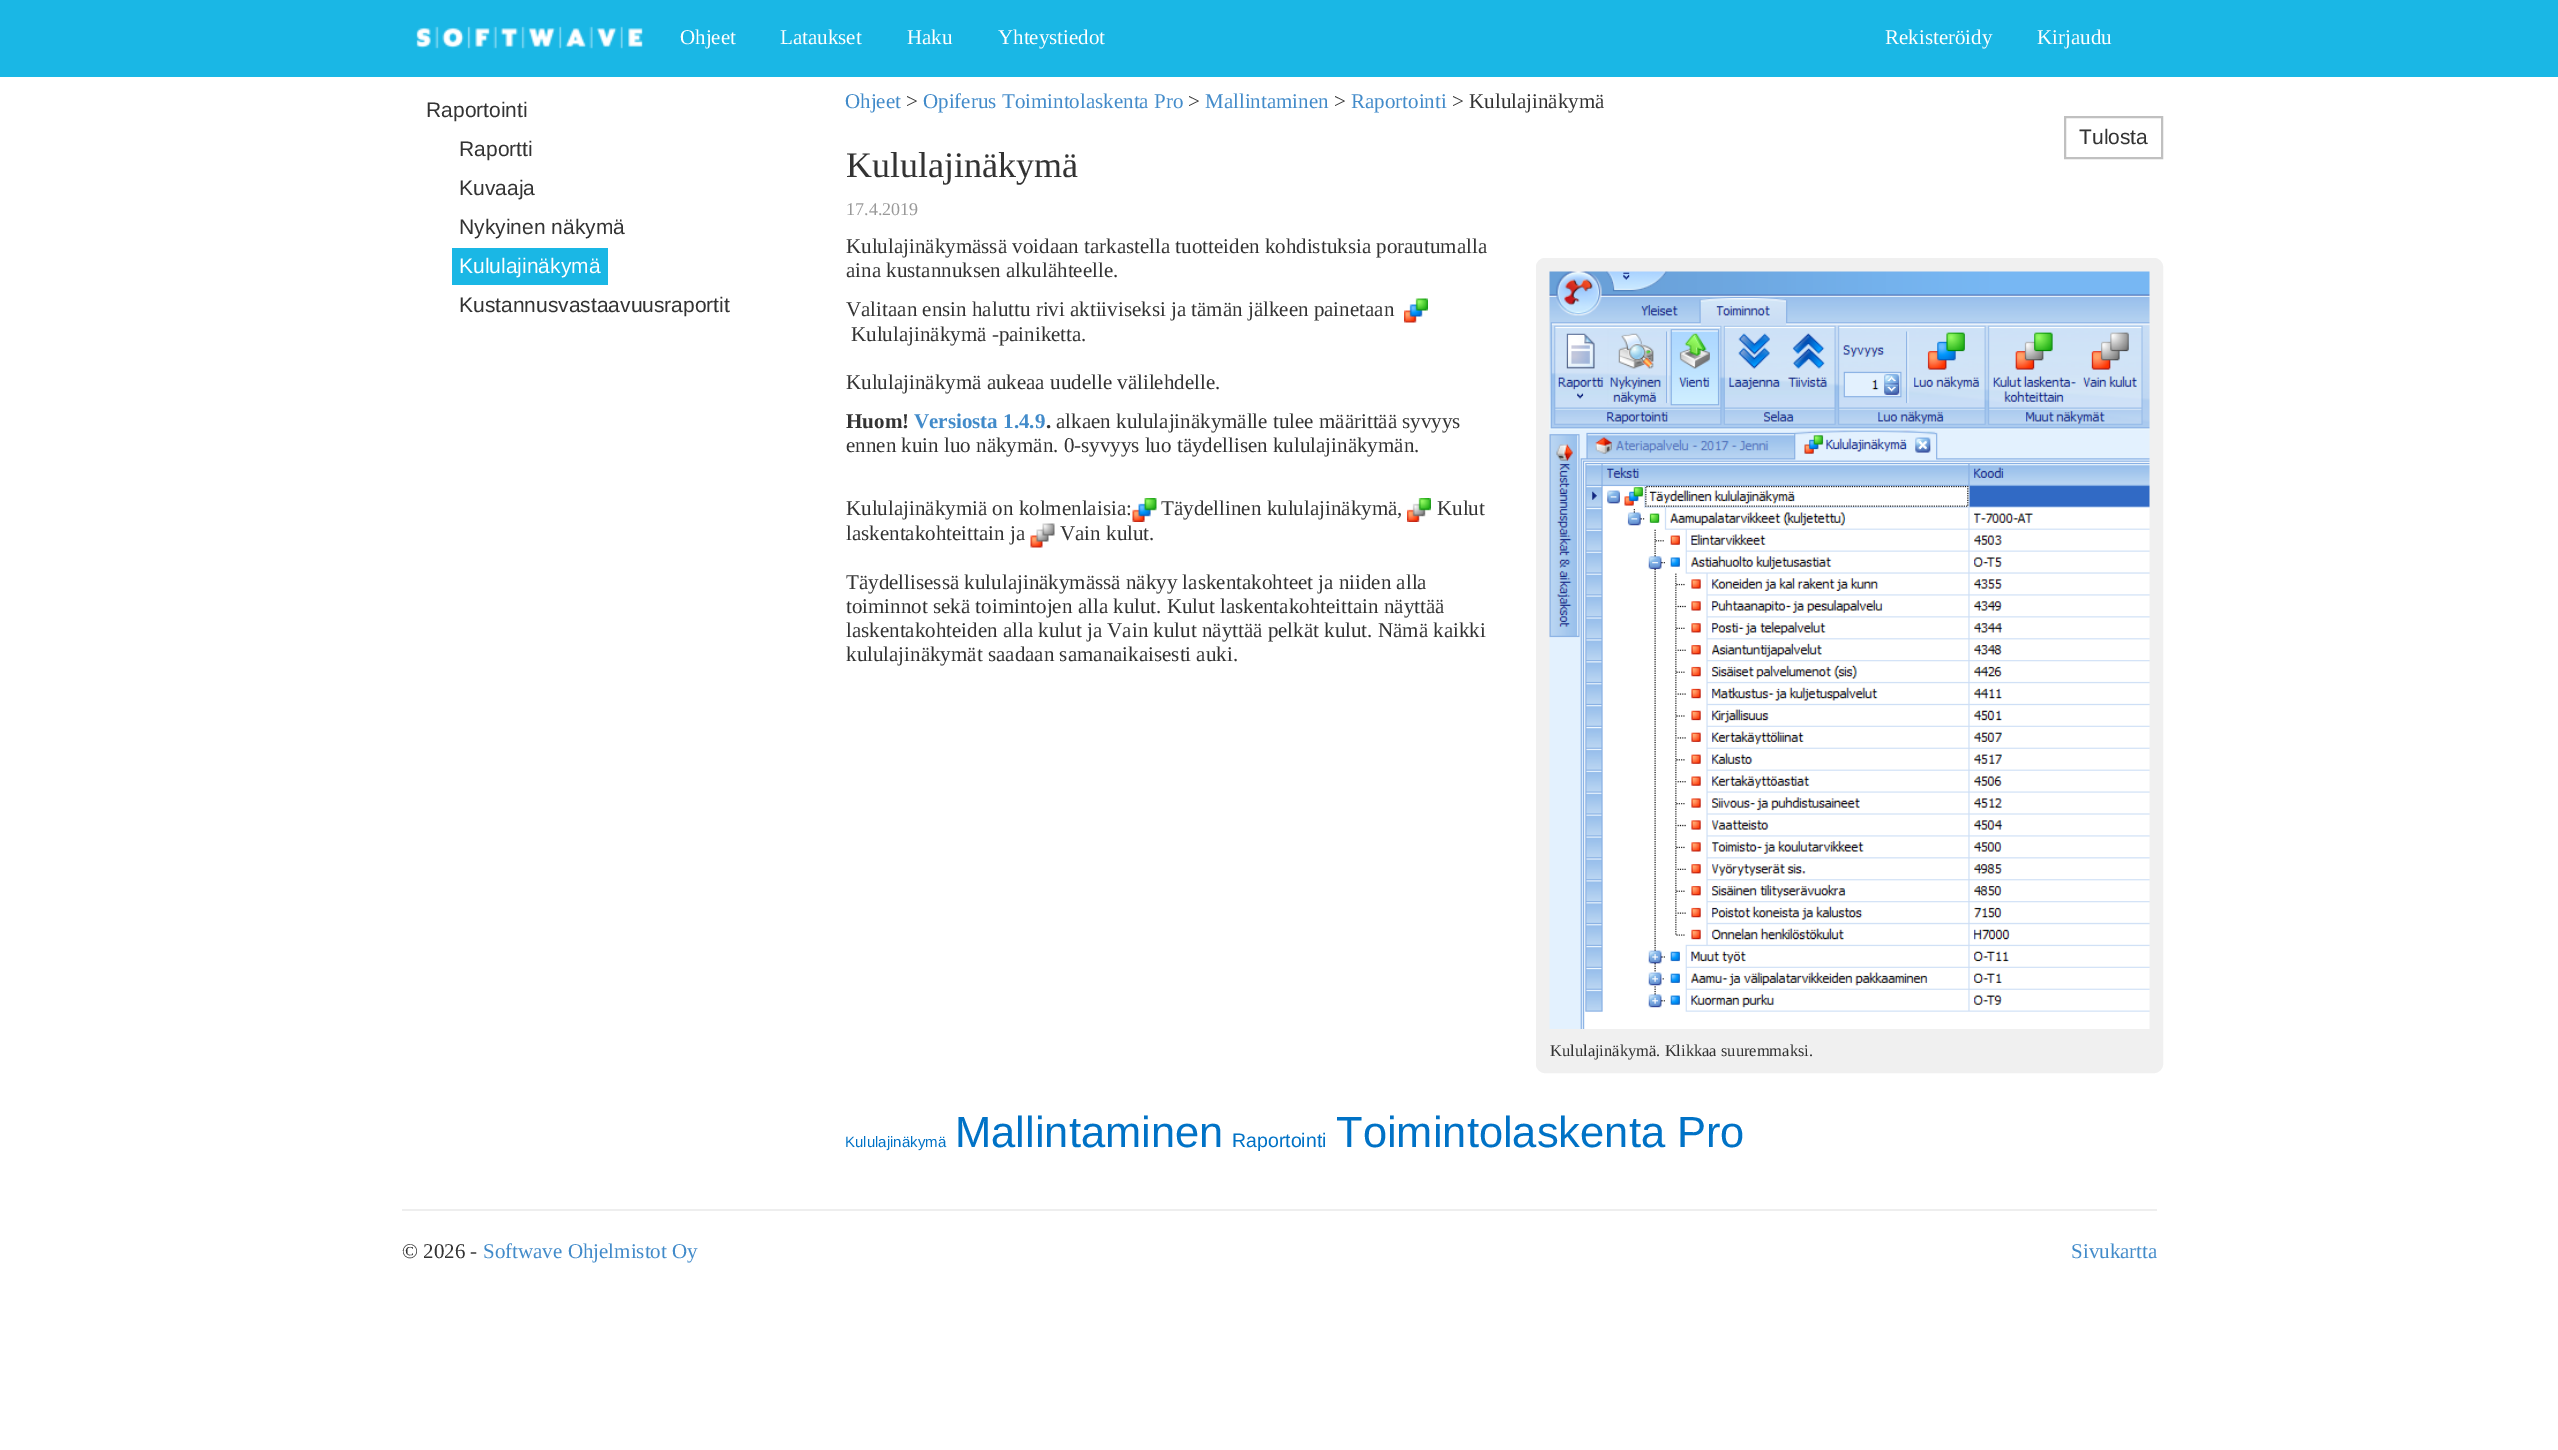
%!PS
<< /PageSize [2558 1450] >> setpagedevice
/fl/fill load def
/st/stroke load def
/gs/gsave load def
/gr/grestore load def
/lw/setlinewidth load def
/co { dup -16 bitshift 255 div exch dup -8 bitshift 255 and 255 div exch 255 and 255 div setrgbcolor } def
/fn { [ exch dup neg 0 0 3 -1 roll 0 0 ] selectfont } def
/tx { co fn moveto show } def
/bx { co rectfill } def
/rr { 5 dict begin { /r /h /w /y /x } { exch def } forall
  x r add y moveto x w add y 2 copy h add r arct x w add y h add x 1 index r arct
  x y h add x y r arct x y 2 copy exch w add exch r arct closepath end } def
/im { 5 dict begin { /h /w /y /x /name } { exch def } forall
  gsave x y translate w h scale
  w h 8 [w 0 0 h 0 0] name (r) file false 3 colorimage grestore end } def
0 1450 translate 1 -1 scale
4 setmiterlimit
0 0 2558 1450 16#FFFFFF bx
0 0 2558 77 16#1AB7E5 bx
(media/1.raw) 416 26 227 23 im
452 248 156 37 16#1AB7E5 bx
16#C0C0C0 co
2 lw
2065 117 97 41 rectstroke
(media/2.raw) 1404 298 24 25 im
(media/3.raw) 1132 498 25 24 im
(media/4.raw) 1407 498 24 24 im
(media/5.raw) 1030 523 25 25 im
16#F0F0F0 co
1537 259 625 813 8 rr gs fl gr
st
(media/6.raw) 1549 271 601 758 im
402 1209 1755 2 16#EEEEEE bx
(Ohjeet) 680 44 /LiberationSerif-Regular 21 16#FFFFFF tx
(Lataukset) 780 44 /LiberationSerif-Regular 21 16#FFFFFF tx
(Haku) 907 44 /LiberationSerif-Regular 21 16#FFFFFF tx
(Yhteystiedot) 998 44 /LiberationSerif-Regular 21 16#FFFFFF tx
(Rekisteröidy) 1885 44 /LiberationSerif-Regular 21 16#FFFFFF tx
(Kirjaudu) 2037 44 /LiberationSerif-Regular 21 16#FFFFFF tx
(Raportointi) 426 117 /LiberationSans-Regular 21 16#333333 tx
(Raportti) 459 156 /LiberationSans-Regular 21 16#333333 tx
(Kuvaaja) 459 195 /LiberationSans-Regular 21 16#333333 tx
(Nykyinen näkymä) 459 234 /LiberationSans-Regular 21 16#333333 tx
(Kululajinäkymä) 459 273 /LiberationSans-Regular 21 16#FFFFFF tx
(Kustannusvastaavuusraportit) 459 312 /LiberationSans-Regular 21 16#333333 tx
(Ohjeet) 845 108 /LiberationSerif-Regular 21 16#428BCA tx
(>) 906 108 /LiberationSerif-Regular 21 16#333333 tx
(Opiferus Toimintolaskenta Pro) 923 108 /LiberationSerif-Regular 21 16#428BCA tx
(>) 1188 108 /LiberationSerif-Regular 21 16#333333 tx
(Mallintaminen) 1205 108 /LiberationSerif-Regular 21 16#428BCA tx
(>) 1334 108 /LiberationSerif-Regular 21 16#333333 tx
(Raportointi) 1351 108 /LiberationSerif-Regular 21 16#428BCA tx
(> Kululajinäkymä) 1452 108 /LiberationSerif-Regular 21 16#333333 tx
(Tulosta) 2079 144 /LiberationSans-Regular 21 16#333333 tx
(Kululajinäkymä) 846 177 /LiberationSerif-Regular 36 16#333333 tx
(17.4.2019) 846 215 /LiberationSerif-Regular 18 16#999999 tx
(Kululajinäkymässä voidaan tarkastella tuotteiden kohdistuksia porautumalla) 846 253 /LiberationSerif-Regular 21 16#333333 tx
(aina kustannuksen alkulähteelle.) 846 277 /LiberationSerif-Regular 21 16#333333 tx
(Valitaan ensin haluttu rivi aktiiviseksi ja tämän jälkeen painetaan) 846 316 /LiberationSerif-Regular 21 16#333333 tx
(Kululajinäkymä -painiketta.) 851 341 /LiberationSerif-Regular 21 16#333333 tx
(Kululajinäkymä aukeaa uudelle välilehdelle.) 846 389 /LiberationSerif-Regular 21 16#333333 tx
(Huom!) 846 428 /LiberationSerif-Bold 21 16#333333 tx
(Versiosta 1.4.9) 914 428 /LiberationSerif-Bold 21 16#428BCA tx
(.) 1046 428 /LiberationSerif-Bold 21 16#333333 tx
(alkaen kululajinäkymälle tulee määrittää syvyys) 1056 428 /LiberationSerif-Regular 21 16#333333 tx
(ennen kuin luo näkymän. 0-syvyys luo täydellisen kululajinäkymän.) 846 452 /LiberationSerif-Regular 21 16#333333 tx
(Kululajinäkymiä on kolmenlaisia:) 846 515 /LiberationSerif-Regular 21 16#333333 tx
(Täydellinen kululajinäkymä,) 1161 515 /LiberationSerif-Regular 21 16#333333 tx
(Kulut) 1437 515 /LiberationSerif-Regular 21 16#333333 tx
(laskentakohteittain ja) 846 540 /LiberationSerif-Regular 21 16#333333 tx
(Vain kulut.) 1060 540 /LiberationSerif-Regular 21 16#333333 tx
(Täydellisessä kululajinäkymässä näkyy laskentakohteet ja niiden alla) 846 589 /LiberationSerif-Regular 21 16#333333 tx
(toiminnot sekä toimintojen alla kulut. Kulut laskentakohteittain näyttää) 846 613 /LiberationSerif-Regular 21 16#333333 tx
(laskentakohteiden alla kulut ja Vain kulut näyttää pelkät kulut. Nämä kaikki) 846 637 /LiberationSerif-Regular 21 16#333333 tx
(kululajinäkymät saadaan samanaikaisesti auki.) 846 661 /LiberationSerif-Regular 21 16#333333 tx
(Kululajinäkymä. Klikkaa suuremmaksi.) 1550 1056 /LiberationSerif-Regular 16.5 16#333333 tx
(Kululajinäkymä) 845 1147 /LiberationSans-Regular 15 16#0072C6 tx
(Mallintaminen) 955 1147 /LiberationSans-Regular 43.5 16#0072C6 tx
(Raportointi) 1232 1147 /LiberationSans-Regular 19.5 16#0072C6 tx
(Toimintolaskenta Pro) 1336 1147 /LiberationSans-Regular 43.5 16#0072C6 tx
(© 2026 -) 402 1258 /LiberationSerif-Regular 21 16#333333 tx
(Softwave Ohjelmistot Oy) 483 1258 /LiberationSerif-Regular 21 16#428BCA tx
(Sivukartta) 2071 1258 /LiberationSerif-Regular 21 16#428BCA tx
showpage
